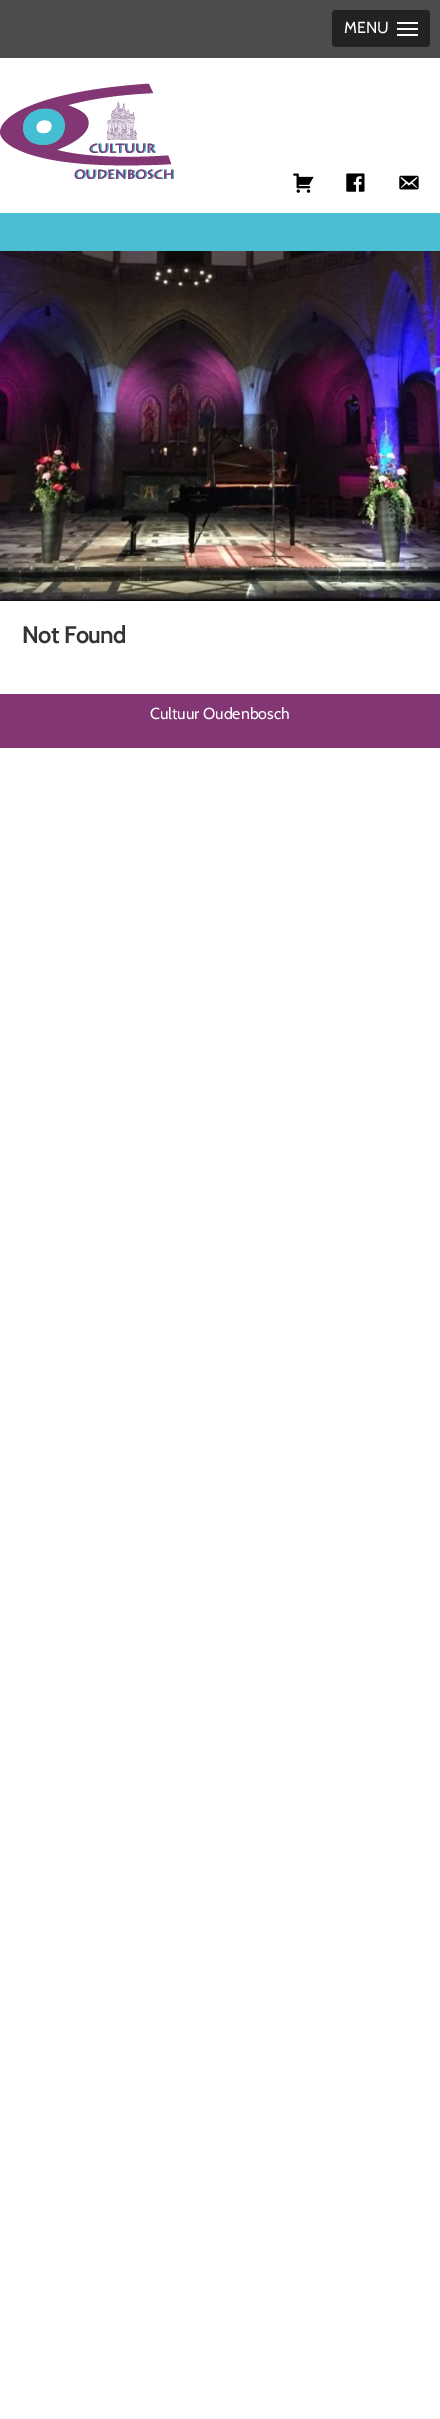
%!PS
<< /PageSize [440 2419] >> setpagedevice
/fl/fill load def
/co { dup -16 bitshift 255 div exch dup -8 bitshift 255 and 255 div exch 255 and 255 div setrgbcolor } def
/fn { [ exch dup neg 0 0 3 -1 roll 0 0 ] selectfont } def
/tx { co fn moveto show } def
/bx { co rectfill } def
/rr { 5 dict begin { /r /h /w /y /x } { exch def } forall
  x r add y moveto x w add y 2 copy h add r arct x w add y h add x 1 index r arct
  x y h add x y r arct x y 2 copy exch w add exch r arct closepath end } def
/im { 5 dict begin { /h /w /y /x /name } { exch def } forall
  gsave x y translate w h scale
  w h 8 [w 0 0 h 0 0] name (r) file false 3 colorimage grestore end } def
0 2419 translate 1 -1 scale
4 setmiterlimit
0 0 440 2419 16#FFFFFF bx
0 0 440 58 16#4C4C4C bx
16#222222 co
332 10 98 37 4 rr fl
16#FFFFFF co
397 22 21 2 1 rr fl
397 28 21 2 1 rr fl
397 34 21 2 1 rr fl
(media/1.raw) 0 83 174 96 im
(media/2.raw) 293 173 21 20 im
(media/3.raw) 346 173 19 19 im
(media/4.raw) 399 175 20 15 im
0 213 440 38 16#4ABED3 bx
(media/5.raw) 0 251 440 350 im
0 694 440 54 16#823673 bx
(MENU) 344 33 /Cabin-Regular 16 16#FFFFFF tx
(Not Found) 22 643 /Cabin-Bold 23 16#333333 tx
(Cultuur Oudenbosch) 150 719 /Cabin-Regular 16 16#FFFFFF tx
showpage
